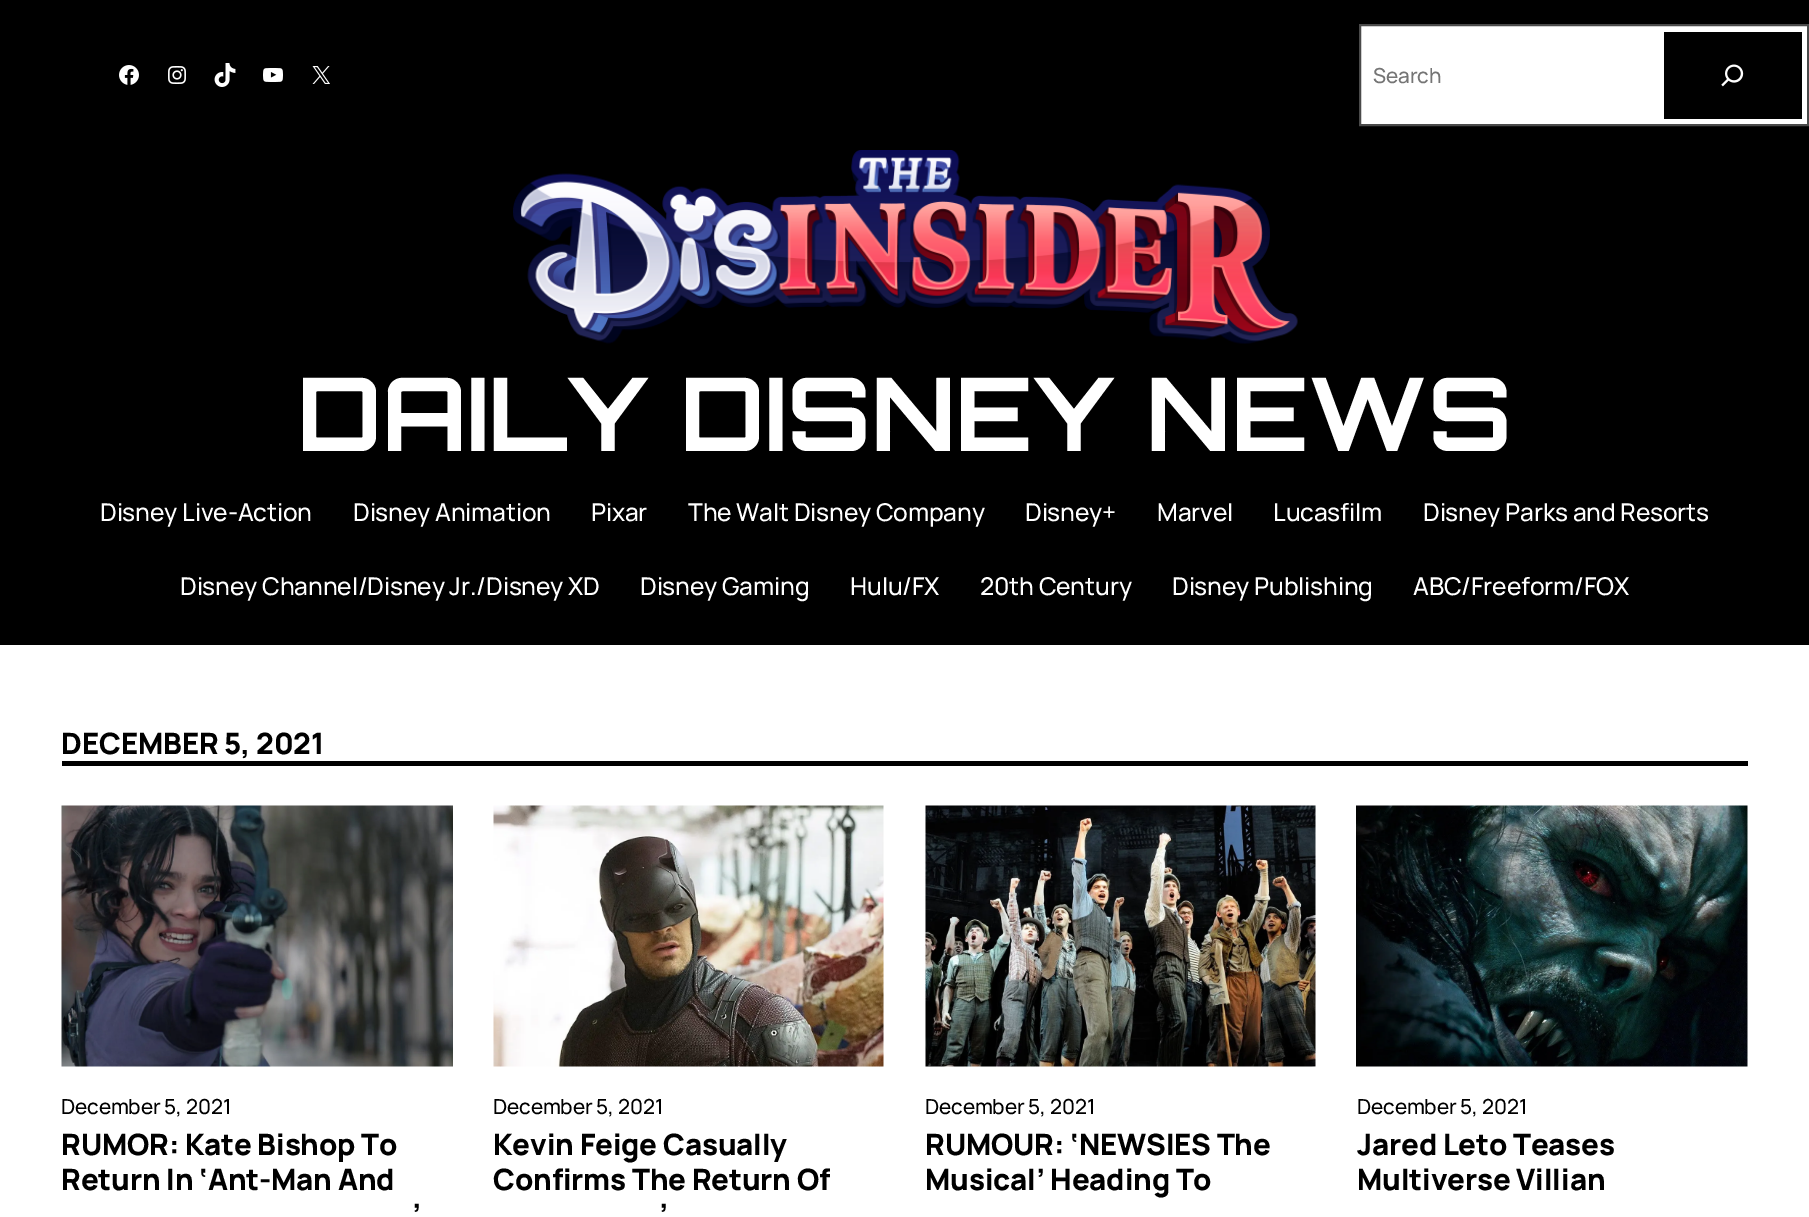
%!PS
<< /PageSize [1809 1217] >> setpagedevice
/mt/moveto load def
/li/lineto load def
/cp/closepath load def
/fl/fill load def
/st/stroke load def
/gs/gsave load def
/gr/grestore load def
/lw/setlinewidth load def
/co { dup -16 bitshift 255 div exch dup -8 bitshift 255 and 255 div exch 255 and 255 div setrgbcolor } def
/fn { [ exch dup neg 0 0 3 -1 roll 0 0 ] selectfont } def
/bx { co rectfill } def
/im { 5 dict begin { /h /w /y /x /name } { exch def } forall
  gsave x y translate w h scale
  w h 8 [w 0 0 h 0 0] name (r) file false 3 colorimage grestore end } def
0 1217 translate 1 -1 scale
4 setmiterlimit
0 0 1809 1217 16#FFFFFF bx
0 0 1809 645 16#000000 bx
(media/1.raw) 119 65 20 20 im
(media/2.raw) 168 66 18 18 im
(media/3.raw) 214 63 22 24 im
(media/4.raw) 263 68 20 14 im
(media/5.raw) 312 66 18 18 im
16#FFFFFF co
1360 25 mt 1808 25 li 1808 125 li 1360 125 li cp gs fl gr
16#4A4A4A co
2 lw
st
1664 32 138 87 16#000000 bx
(media/6.raw) 1721 64 23 23 im
(media/7.raw) 513 150 785 194 im
62 761 1686 5 16#000000 bx
(media/8.raw) 61 805 392 262 im
(media/9.raw) 493 805 391 262 im
(media/10.raw) 925 805 391 262 im
(media/11.raw) 1356 805 392 262 im
/Manrope-Medium 20.75 fn
16#757575 co
1373 83 mt -.15 0 (Search) ashow
/Orbitron-Bold 101.8 fn
16#FFFFFF co
297 451 mt -.15 0 (DAILY DISNEY NEWS) ashow
/Manrope-Medium 24.5 fn
100 521 mt -.15 0 (Disney Live-Action) ashow
353 521 mt -.15 0 (Disney Animation) ashow
591 521 mt -.15 0 (Pixar) ashow
688 521 mt -.15 0 (The Walt Disney Company) ashow
1025 521 mt -.15 0 (Disney+) ashow
1157 521 mt -.15 0 (Marvel) ashow
1273 521 mt -.15 0 (Lucasfilm) ashow
1423 521 mt -.15 0 (Disney Parks and Resorts) ashow
180 595 mt -.15 0 (Disney Channel/Disney Jr./Disney XD) ashow
640 595 mt -.15 0 (Disney Gaming) ashow
850 595 mt -.15 0 (Hulu/FX) ashow
980 595 mt -.15 0 (20th Century) ashow
1172 595 mt -.15 0 (Disney Publishing) ashow
1413 595 mt -.15 0 (ABC/Freeform/FOX) ashow
/Manrope-ExtraBold 29.4 fn
16#000000 co
61 754 mt -.15 0 (DECEMBER 5, 2021) ashow
/Manrope-Medium 20.75 fn
61 1114 mt -.15 0 (December 5, 2021) ashow
/Manrope-ExtraBold 29.4 fn
61 1155 mt -.15 0 (RUMOR: Kate Bishop To) ashow
61 1190 mt -.15 0 (Return In ‘Ant-Man And) ashow
412 1225 mt -.15 0 (’) ashow
/Manrope-Medium 20.75 fn
493 1114 mt -.15 0 (December 5, 2021) ashow
/Manrope-ExtraBold 29.4 fn
493 1155 mt -.15 0 (Kevin Feige Casually) ashow
493 1190 mt -.15 0 (Confirms The Return Of) ashow
659 1225 mt -.15 0 (’) ashow
/Manrope-Medium 20.75 fn
925 1114 mt -.15 0 (December 5, 2021) ashow
/Manrope-ExtraBold 29.4 fn
925 1155 mt -.15 0 (RUMOUR: ‘NEWSIES The) ashow
925 1190 mt -.15 0 (Musical’ Heading To) ashow
/Manrope-Medium 20.75 fn
1357 1114 mt -.15 0 (December 5, 2021) ashow
/Manrope-ExtraBold 29.4 fn
1357 1155 mt -.15 0 (Jared Leto Teases) ashow
1357 1190 mt -.15 0 (Multiverse Villian) ashow
showpage
